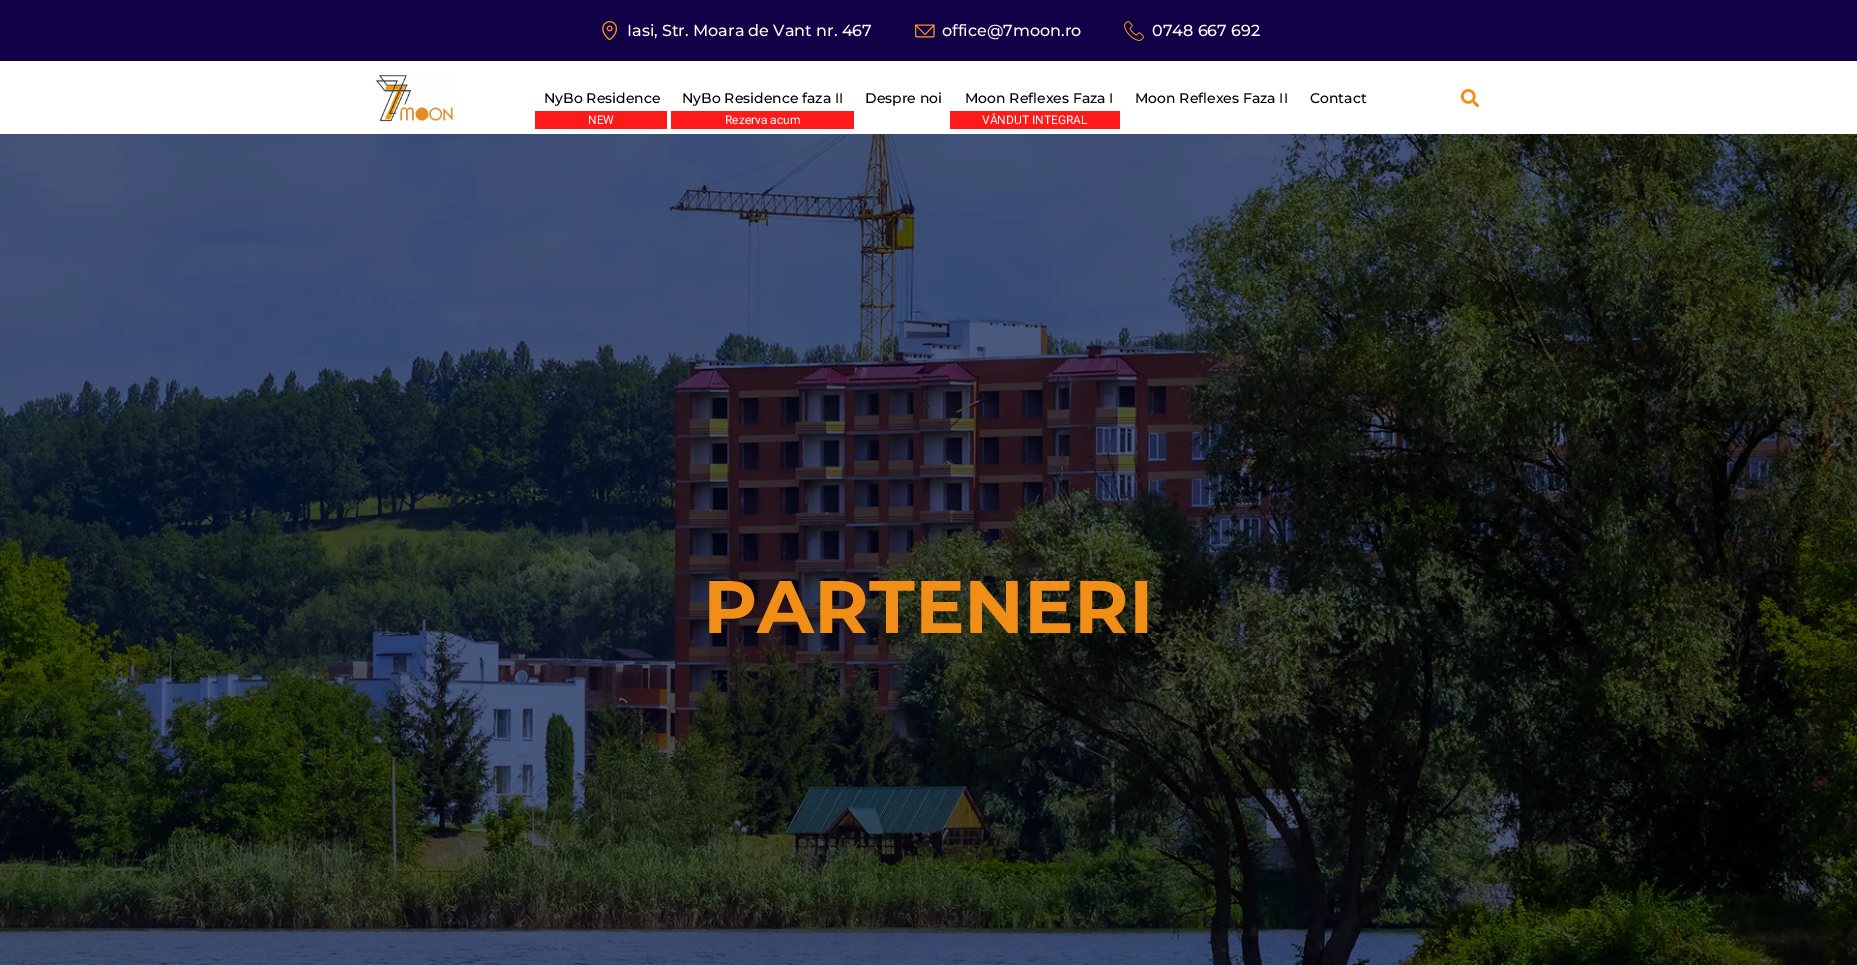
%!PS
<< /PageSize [1857 965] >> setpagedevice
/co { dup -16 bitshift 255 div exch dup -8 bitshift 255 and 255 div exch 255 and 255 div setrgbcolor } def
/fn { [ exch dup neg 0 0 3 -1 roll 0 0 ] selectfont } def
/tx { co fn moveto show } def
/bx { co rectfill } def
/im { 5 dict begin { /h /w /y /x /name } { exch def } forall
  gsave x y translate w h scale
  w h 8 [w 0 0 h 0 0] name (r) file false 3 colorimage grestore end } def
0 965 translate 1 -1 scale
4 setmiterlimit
0 0 1857 965 16#FFFFFF bx
0 0 1857 61 16#110147 bx
(media/1.raw) 602 21 15 19 im
(media/2.raw) 915 24 20 14 im
(media/3.raw) 1124 21 20 20 im
(media/4.raw) 375 75 79 47 im
535 111 132 18 16#FF1A1A bx
671 111 183 18 16#FF1A1A bx
950 111 170 18 16#FF1A1A bx
(media/5.raw) 1460 89 19 19 im
(media/6.raw) 0 134 1857 831 im
(Iasi, Str. Moara de Vant nr. 467) 627 36 /Montserrat-Medium 16 16#FFFFFF tx
(office@7moon.ro) 942 36 /Montserrat-Medium 16 16#FFFFFF tx
(0748 667 692) 1152 36 /Montserrat-Medium 16 16#FFFFFF tx
(NyBo Residence) 544 103 /Montserrat-Medium 14 16#000000 tx
(NEW) 588 124 /Roboto-Regular 12 16#FFFFFF tx
(NyBo Residence faza II) 682 103 /Montserrat-Medium 14 16#000000 tx
(Rezerva acum) 725 124 /Roboto-Regular 12 16#FFFFFF tx
(Despre noi) 865 103 /Montserrat-Medium 14 16#000000 tx
(Moon Reflexes Faza I) 965 103 /Montserrat-Medium 14 16#000000 tx
(VÂNDUT INTEGRAL) 982 124 /Roboto-Regular 12 16#FFFFFF tx
(Moon Reflexes Faza II) 1135 103 /Montserrat-Medium 14 16#000000 tx
(Contact) 1310 103 /Montserrat-Medium 14 16#000000 tx
(PARTENERI) 703 633 /Montserrat-Bold 74.25 16#F18E17 tx
showpage
